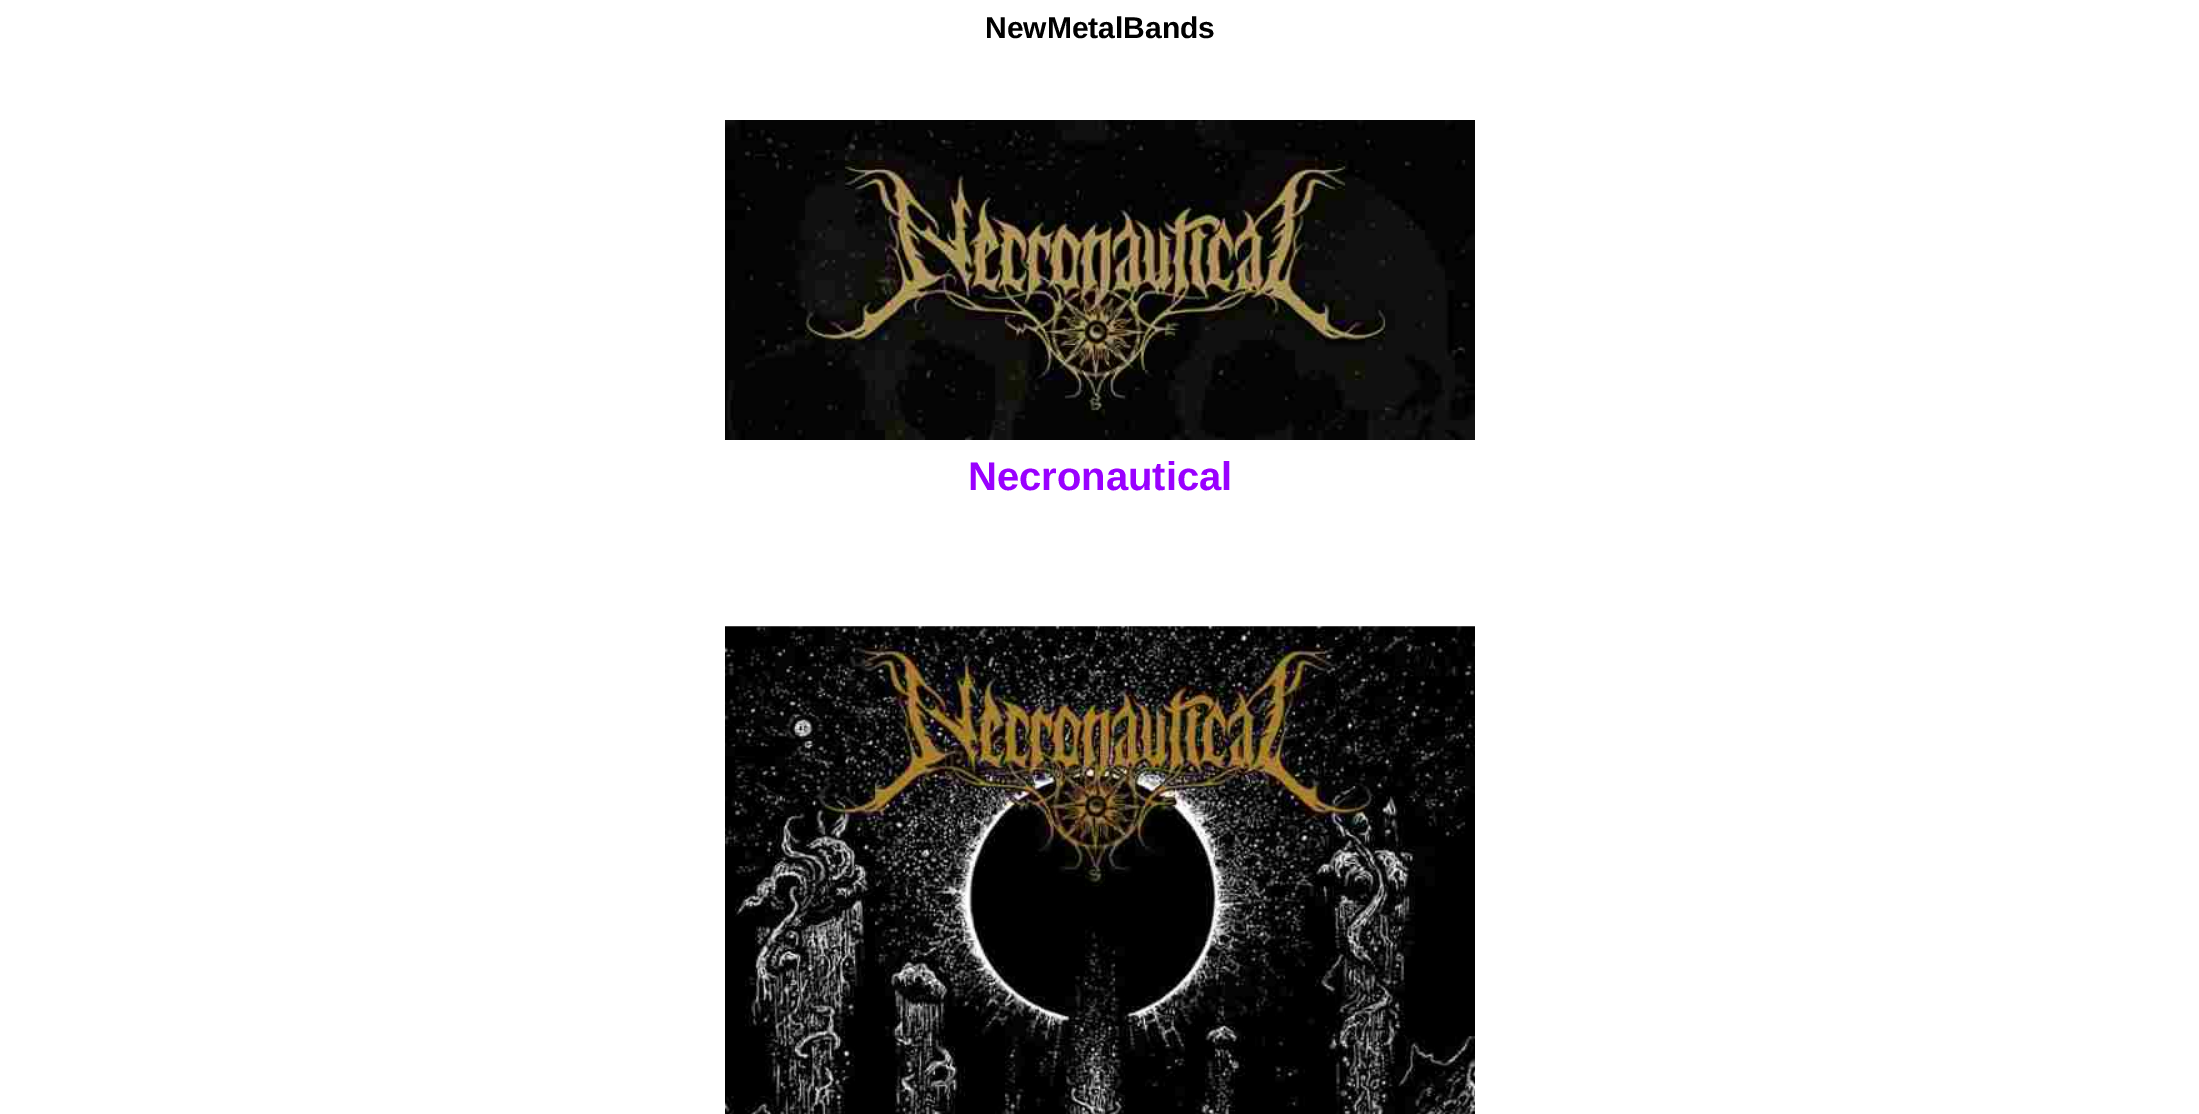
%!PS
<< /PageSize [2199 1114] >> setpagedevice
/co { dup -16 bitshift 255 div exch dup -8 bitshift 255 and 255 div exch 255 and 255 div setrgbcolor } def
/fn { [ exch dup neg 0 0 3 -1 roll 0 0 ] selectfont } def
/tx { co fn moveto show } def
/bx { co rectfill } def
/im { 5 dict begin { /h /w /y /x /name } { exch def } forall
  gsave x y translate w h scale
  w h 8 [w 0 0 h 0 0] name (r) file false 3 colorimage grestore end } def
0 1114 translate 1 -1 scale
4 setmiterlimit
0 0 2199 1114 16#FFFFFF bx
(media/1.raw) 725 120 750 320 im
(media/2.raw) 725 626 750 488 im
(NewMetalBands) 985 38 /LiberationSans-Bold 30 16#000000 tx
(Necronautical) 968 490 /LiberationSans-Bold 40 16#9900FF tx
showpage
